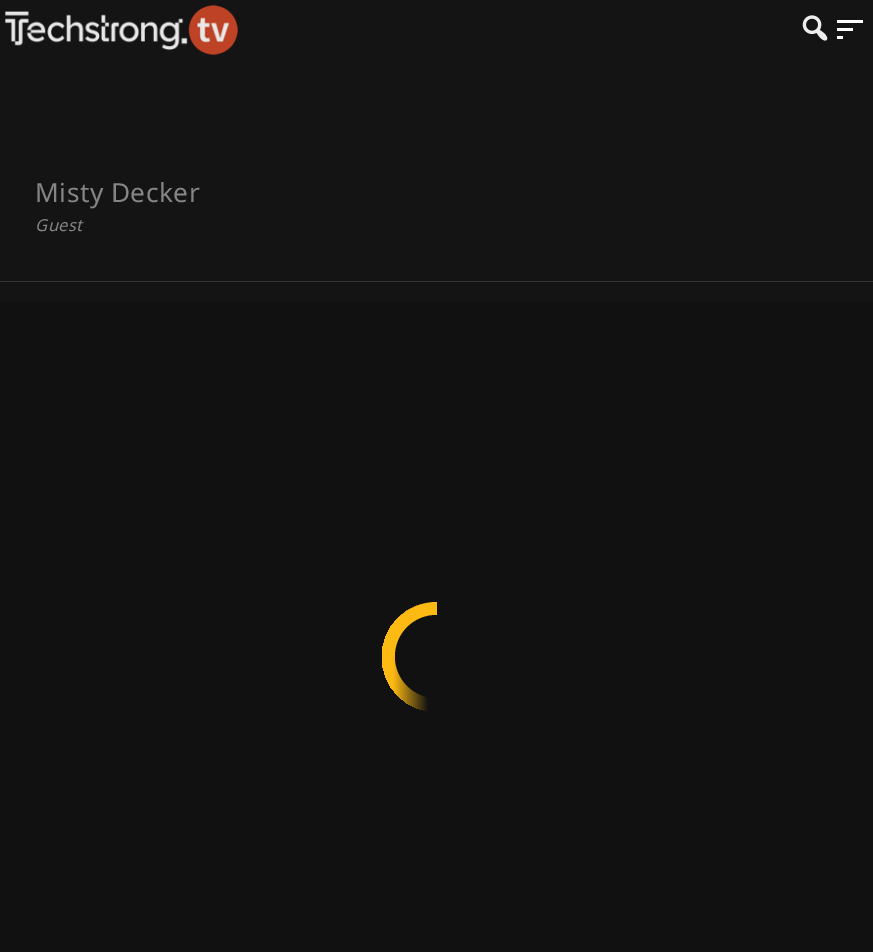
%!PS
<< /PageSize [873 952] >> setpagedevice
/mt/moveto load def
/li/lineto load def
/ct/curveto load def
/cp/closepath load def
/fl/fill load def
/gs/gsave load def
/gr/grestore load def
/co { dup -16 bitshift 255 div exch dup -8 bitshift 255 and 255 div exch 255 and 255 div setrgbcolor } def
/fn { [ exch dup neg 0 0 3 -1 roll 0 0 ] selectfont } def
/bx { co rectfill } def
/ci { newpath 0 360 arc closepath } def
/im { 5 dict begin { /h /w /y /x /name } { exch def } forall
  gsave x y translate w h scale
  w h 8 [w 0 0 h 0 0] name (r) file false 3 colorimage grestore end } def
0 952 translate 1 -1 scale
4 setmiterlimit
0 0 873 952 16#141414 bx
(media/1.raw) 5 5 233 50 im
(media/2.raw) 802 15 26 26 im
837 28 16 3 16#FFFFFF bx
837 20 26 3 16#FFFFFF bx
837 36 6 3 16#FFFFFF bx
0 281 873 1 16#353535 bx
0 302 873 650 16#111111 bx
gs 437 657 55 ci clip newpath
<< /ShadingType 2 /ColorSpace /DeviceRGB /Coords [382 657 492 657] /Extend [true true] /Function << /FunctionType 3 /Domain [0 1] /Functions [<< /FunctionType 2 /Domain [0 1] /C0 [.992 .729 .075] /C1 [.992 .729 .075] /N 1 >> << /FunctionType 2 /Domain [0 1] /C0 [.992 .729 .075] /C1 [.067 .067 .067] /N 1 >> << /FunctionType 2 /Domain [0 1] /C0 [.067 .067 .067] /C1 [.067 .067 .067] /N 1 >>] /Bounds [.1 .42] /Encode [0 1 0 1 0 1] >> >> shfill gr
16#FDBA13 co
437 602 mt 437 657 li 382 657 li 382 626.5 406.5 602 437 602 ct cp fl
16#111111 co
436.5 656.5 41.5 ci fl
/NotoSans-Regular 26.25 fn
16#858585 co
35 202 mt .5 0 (Misty Decker) ashow
/NotoSans-Italic 16.5 fn
35 231 mt .5 0 (Guest) ashow
showpage
